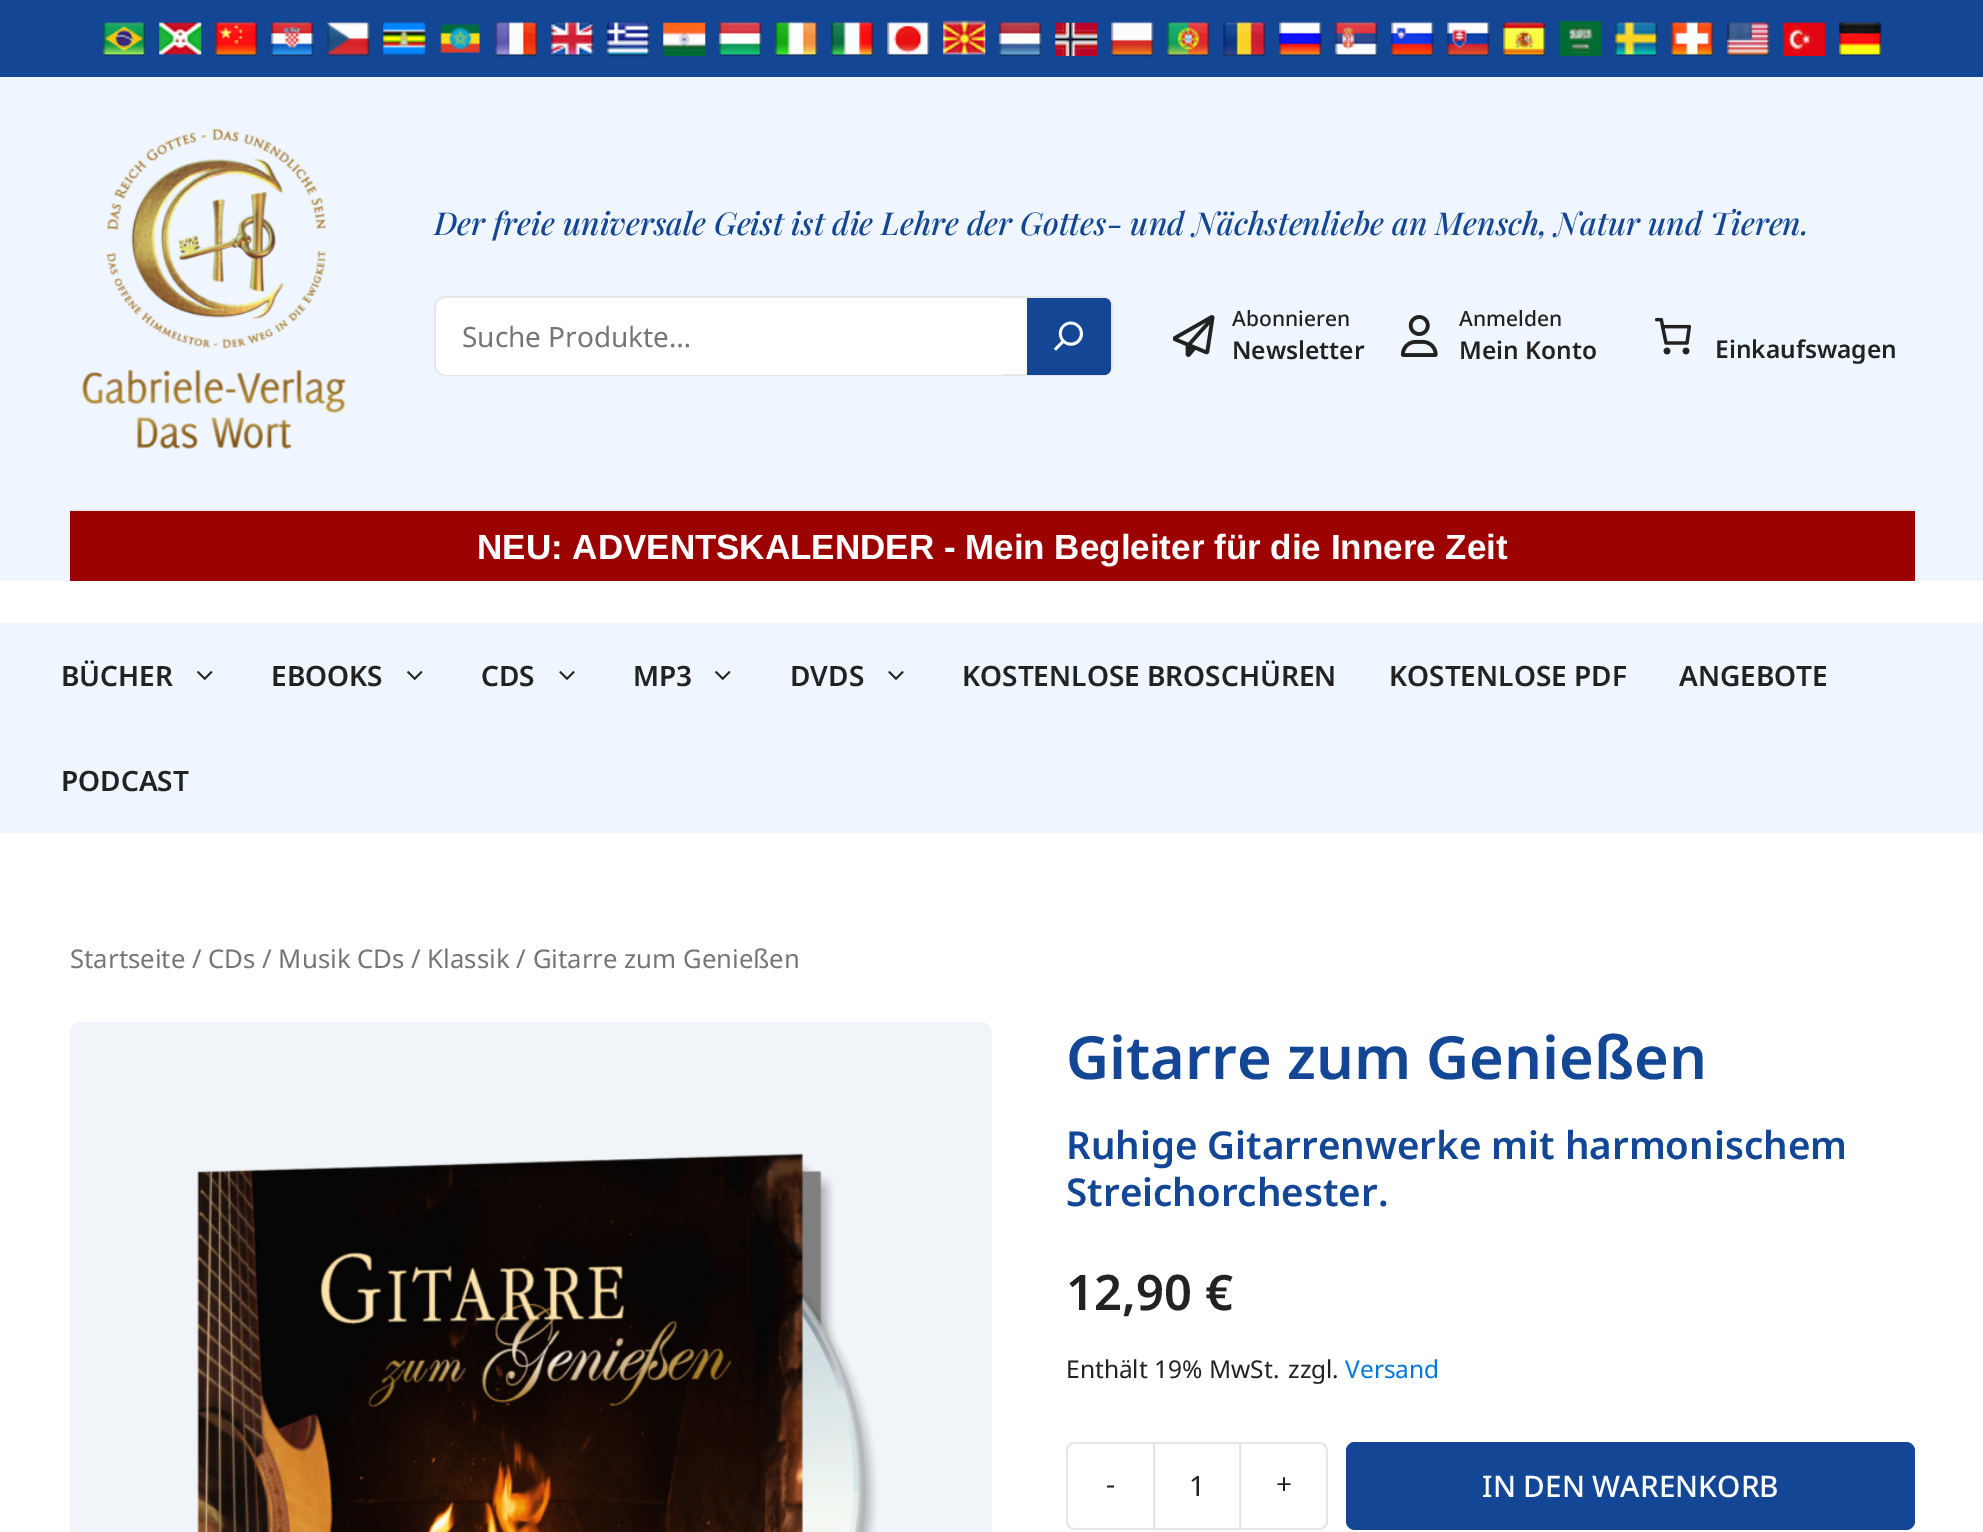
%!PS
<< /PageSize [1983 1532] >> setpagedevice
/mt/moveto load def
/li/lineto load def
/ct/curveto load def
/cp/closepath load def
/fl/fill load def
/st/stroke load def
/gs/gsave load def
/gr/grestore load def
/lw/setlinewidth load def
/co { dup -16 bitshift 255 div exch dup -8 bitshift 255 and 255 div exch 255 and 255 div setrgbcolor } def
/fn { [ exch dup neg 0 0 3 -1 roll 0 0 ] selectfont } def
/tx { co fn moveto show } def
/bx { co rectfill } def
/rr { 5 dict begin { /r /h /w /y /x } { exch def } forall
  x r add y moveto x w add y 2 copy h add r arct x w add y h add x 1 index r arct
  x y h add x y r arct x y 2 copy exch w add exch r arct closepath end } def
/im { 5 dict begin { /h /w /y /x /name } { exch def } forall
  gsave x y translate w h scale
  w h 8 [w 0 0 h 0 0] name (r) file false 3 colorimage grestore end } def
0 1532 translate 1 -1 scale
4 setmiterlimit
0 0 1983 1532 16#FFFFFF bx
0 0 1983 77 16#134694 bx
(media/1.raw) 103 22 43 35 im
(media/2.raw) 159 22 43 33 im
(media/3.raw) 215 21 43 36 im
(media/4.raw) 271 21 43 36 im
(media/5.raw) 327 22 43 35 im
(media/6.raw) 383 22 43 33 im
(media/7.raw) 440 24 40 29 im
(media/8.raw) 495 21 43 36 im
(media/9.raw) 551 21 43 36 im
(media/10.raw) 607 21 43 36 im
(media/11.raw) 663 22 43 34 im
(media/12.raw) 719 22 43 35 im
(media/13.raw) 775 21 43 36 im
(media/14.raw) 831 21 43 36 im
(media/15.raw) 887 21 43 36 im
(media/16.raw) 943 20 43 35 im
(media/17.raw) 999 21 43 36 im
(media/18.raw) 1055 22 43 34 im
(media/19.raw) 1111 21 43 36 im
(media/20.raw) 1167 21 43 36 im
(media/21.raw) 1223 21 43 36 im
(media/22.raw) 1279 21 43 36 im
(media/23.raw) 1335 22 43 35 im
(media/24.raw) 1391 21 43 36 im
(media/25.raw) 1447 22 43 35 im
(media/26.raw) 1503 21 43 36 im
(media/27.raw) 1559 21 43 35 im
(media/28.raw) 1615 21 43 36 im
(media/29.raw) 1671 21 43 36 im
(media/30.raw) 1727 22 43 35 im
(media/31.raw) 1783 22 43 34 im
(media/32.raw) 1839 21 43 36 im
0 77 1983 504 16#EFF6FF bx
70 509 1845 2 16#E5E7EB bx
(media/33.raw) 82 128 264 321 im
16#FFFFFF co
435 297 677 78 10 rr gs fl gr
16#E5E7EB co
2 lw
st
16#FFFFFF co
436 298 574 77 11 rr fl
16#134694 co
1027 298 mt 1104 298 li 1108 298 1111 301 1111 305 ct 1111 368 li 1111 372 1108 375 1104 375 ct 1027 375 li cp fl
(media/34.raw) 1053 321 30 30 im
(media/35.raw) 1173 315 42 42 im
(media/36.raw) 1400 315 38 42 im
(media/37.raw) 1654 317 38 38 im
70 511 1845 70 16#9D0202 bx
0 623 1983 210 16#EFF6FF bx
(media/38.raw) 197 671 16 9 im
(media/38.raw) 407 671 16 9 im
(media/39.raw) 559 671 16 9 im
(media/38.raw) 715 671 16 9 im
(media/39.raw) 888 671 16 9 im
16#F1F5F9 co
70 1022 922 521 11 rr fl
(media/40.raw) 197 1153 681 379 im
16#E6E6E6 co
1074 1442 mt 1153 1442 li 1153 1530 li 1074 1530 li 1070 1530 1066 1526 1066 1521 ct 1066 1451 li 1066 1446 1070 1442 1074 1442 ct cp 1074 1444 mt 1153 1444 li 1153 1528 li 1074 1528 li 1071 1528 1068 1525 1068 1521 ct 1068 1451 li 1068 1447 1071 1444 1074 1444 ct cp eofill
1154 1443 86 86 rectstroke
1241 1442 mt 1320 1442 li 1324 1442 1328 1446 1328 1451 ct 1328 1521 li 1328 1526 1324 1530 1320 1530 ct 1241 1530 li cp 1241 1444 mt 1320 1444 li 1323 1444 1326 1447 1326 1451 ct 1326 1521 li 1326 1525 1323 1528 1320 1528 ct 1241 1528 li cp eofill
16#134694 co
1346 1442 569 88 9 rr fl
(Der freie universale Geist ist die Lehre der Gottes- und Nächstenliebe an Mensch, Natur und Tieren.) 434 235 /PlayfairDisplay-MediumItalic 31.5 16#134694 tx
(Suche Produkte…) 462 347 /NotoSans-Regular 28 16#757575 tx
(Abonnieren) 1232 326 /NotoSans-Medium 21 16#222222 tx
(Newsletter) 1232 359 /NotoSans-SemiBold 24.5 16#222222 tx
(Anmelden) 1459 326 /NotoSans-Medium 21 16#222222 tx
(Mein Konto) 1459 359 /NotoSans-SemiBold 24.5 16#222222 tx
(Einkaufswagen) 1715 358 /NotoSans-SemiBold 24.5 16#222222 tx
(NEU: ADVENTSKALENDER - Mein Begleiter für die Innere Zeit) 477 559 /LiberationSans-Bold 35 16#FFFFFF tx
(BÜCHER) 61 686 /NotoSans-SemiBold 28 16#222222 tx
(EBOOKS) 271 686 /NotoSans-SemiBold 28 16#222222 tx
(CDS) 481 686 /NotoSans-SemiBold 28 16#222222 tx
(MP3) 633 686 /NotoSans-SemiBold 28 16#222222 tx
(DVDS) 790 686 /NotoSans-SemiBold 28 16#222222 tx
(KOSTENLOSE BROSCHÜREN) 962 686 /NotoSans-SemiBold 28 16#222222 tx
(KOSTENLOSE PDF) 1389 686 /NotoSans-SemiBold 28 16#222222 tx
(ANGEBOTE) 1679 686 /NotoSans-SemiBold 28 16#222222 tx
(PODCAST) 61 791 /NotoSans-SemiBold 28 16#222222 tx
(Startseite / CDs / Musik CDs / Klassik / Gitarre zum Genießen) 70 968 /NotoSans-Regular 25.75 16#757575 tx
(Gitarre zum Genießen) 1066 1079 /NotoSans-SemiBold 59.5 16#134694 tx
(Ruhige Gitarrenwerke mit harmonischem) 1066 1159 /NotoSans-SemiBold 38.5 16#134694 tx
(Streichorchester.) 1066 1206 /NotoSans-SemiBold 38.5 16#134694 tx
(12,90 €) 1066 1310 /NotoSans-SemiBold 49 16#222222 tx
(Enthält 19% MwSt.) 1066 1378 /NotoSans-Regular 24.5 16#222222 tx
(zzgl.) 1288 1378 /NotoSans-Regular 24.5 16#222222 tx
(Versand) 1345 1378 /NotoSans-Regular 24.5 16#0077DD tx
(-) 1106 1494 /NotoSans-Regular 28 16#222222 tx
(1) 1189 1496 /NotoSans-Regular 28 16#222222 tx
(+) 1276 1494 /NotoSans-Regular 28 16#222222 tx
(IN DEN WARENKORB) 1482 1497 /NotoSans-Medium 29.75 16#FFFFFF tx
showpage
